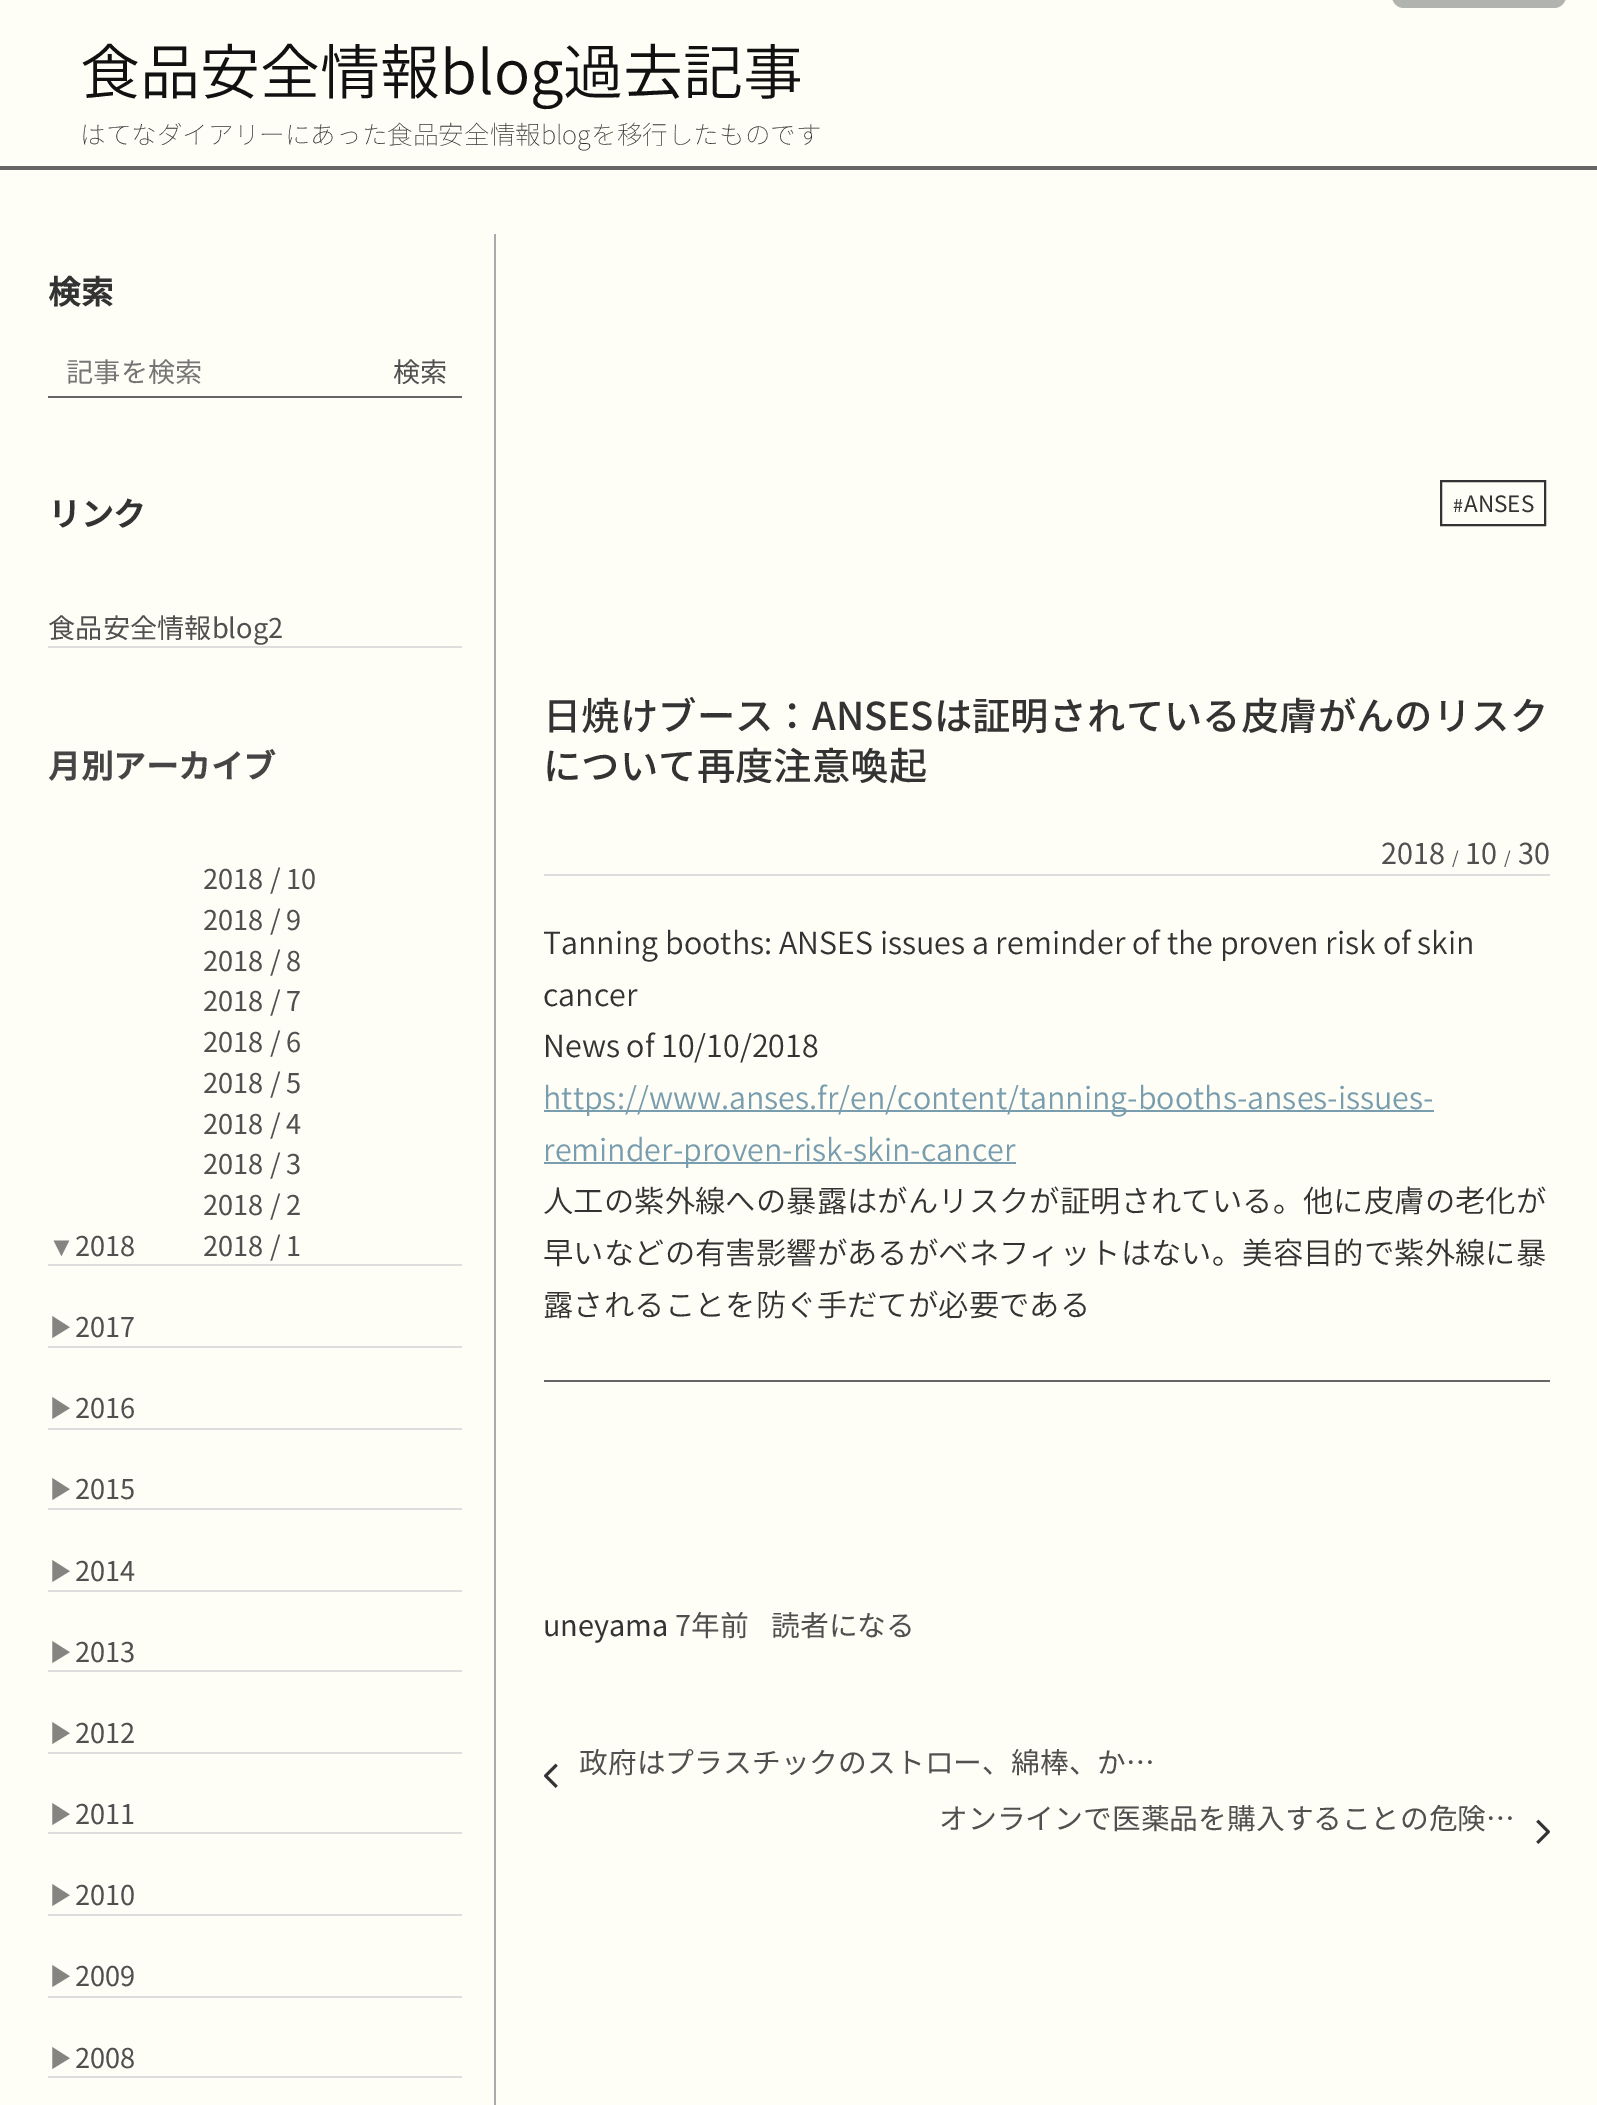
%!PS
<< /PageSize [1597 2105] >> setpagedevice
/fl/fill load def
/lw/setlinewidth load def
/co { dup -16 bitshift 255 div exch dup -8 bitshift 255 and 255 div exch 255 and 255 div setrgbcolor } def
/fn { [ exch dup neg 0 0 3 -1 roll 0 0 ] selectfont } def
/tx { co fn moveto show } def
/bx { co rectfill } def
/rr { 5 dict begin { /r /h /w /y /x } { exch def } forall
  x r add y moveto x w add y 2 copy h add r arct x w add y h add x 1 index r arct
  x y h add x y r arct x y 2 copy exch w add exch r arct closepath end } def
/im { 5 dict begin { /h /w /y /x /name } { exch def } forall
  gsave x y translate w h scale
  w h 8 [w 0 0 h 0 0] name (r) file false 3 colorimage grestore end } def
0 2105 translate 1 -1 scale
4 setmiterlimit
0 0 1597 2105 16#FFFEF6 bx
16#B1B3AF co
1392 -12 174 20 12 rr fl
0 166 1597 4 16#666666 bx
494 234 2 1871 16#AAAAAA bx
48 396 414 2 16#666666 bx
48 646 414 2 16#DDDDDD bx
48 1264 414 2 16#DDDDDD bx
48 1346 414 2 16#DDDDDD bx
48 1428 414 2 16#DDDDDD bx
48 1508 414 2 16#DDDDDD bx
48 1590 414 2 16#DDDDDD bx
48 1670 414 2 16#DDDDDD bx
48 1752 414 2 16#DDDDDD bx
48 1832 414 2 16#DDDDDD bx
48 1914 414 2 16#DDDDDD bx
48 1996 414 2 16#DDDDDD bx
48 2076 414 2 16#DDDDDD bx
544 874 1006 2 16#DDDDDD bx
16#333333 co
2 lw
1441 481 104 44 rectstroke
544 1380 1006 2 16#666666 bx
544 1110 890 2 16#789DAE bx
544 1162 472 2 16#789DAE bx
(media/1.raw) 544 1763 14 25 im
(media/2.raw) 1536 1819 14 25 im
(食品安全情報blog過去記事) 80 94 /NotoSansJP-Light 60 16#111111 tx
(はてなダイアリーにあった食品安全情報blogを移行したものです) 80 144 /NotoSansJP-Thin 25.6 16#333333 tx
(検索) 48 304 /NotoSansJP-Bold 32.5 16#333333 tx
(記事を検索) 66 382 /NotoSansJP-Regular 27.25 16#757575 tx
(検索) 393 382 /NotoSansJP-Regular 27.25 16#505050 tx
(リンク) 48 526 /NotoSansJP-Bold 32.5 16#333333 tx
(食品安全情報blog2) 48 638 /NotoSansJP-Regular 27.25 16#505050 tx
(月別アーカイブ) 48 778 /NotoSansJP-Bold 32.5 16#454545 tx
(▼) 48 1256 /LiberationSans-Regular 27.25 16#858481 tx
(2018) 75 1256 /NotoSansJP-Regular 27.25 16#505050 tx
(2018 / 10) 203 889 /NotoSansJP-Regular 27.25 16#505050 tx
(2018 / 9) 203 930 /NotoSansJP-Regular 27.25 16#505050 tx
(2018 / 8) 203 971 /NotoSansJP-Regular 27.25 16#505050 tx
(2018 / 7) 203 1011 /NotoSansJP-Regular 27.25 16#505050 tx
(2018 / 6) 203 1052 /NotoSansJP-Regular 27.25 16#505050 tx
(2018 / 5) 203 1093 /NotoSansJP-Regular 27.25 16#505050 tx
(2018 / 4) 203 1134 /NotoSansJP-Regular 27.25 16#505050 tx
(2018 / 3) 203 1174 /NotoSansJP-Regular 27.25 16#505050 tx
(2018 / 2) 203 1215 /NotoSansJP-Regular 27.25 16#505050 tx
(2018 / 1) 203 1256 /NotoSansJP-Regular 27.25 16#505050 tx
(▶) 48 1337 /WenQuanYiZenHei-Medium 27.25 16#858481 tx
(2017) 75 1337 /NotoSansJP-Regular 27.25 16#505050 tx
(▶) 48 1418 /WenQuanYiZenHei-Medium 27.25 16#858481 tx
(2016) 75 1418 /NotoSansJP-Regular 27.25 16#505050 tx
(▶) 48 1499 /WenQuanYiZenHei-Medium 27.25 16#858481 tx
(2015) 75 1499 /NotoSansJP-Regular 27.25 16#505050 tx
(▶) 48 1581 /WenQuanYiZenHei-Medium 27.25 16#858481 tx
(2014) 75 1581 /NotoSansJP-Regular 27.25 16#505050 tx
(▶) 48 1662 /WenQuanYiZenHei-Medium 27.25 16#858481 tx
(2013) 75 1662 /NotoSansJP-Regular 27.25 16#505050 tx
(▶) 48 1743 /WenQuanYiZenHei-Medium 27.25 16#858481 tx
(2012) 75 1743 /NotoSansJP-Regular 27.25 16#505050 tx
(▶) 48 1824 /WenQuanYiZenHei-Medium 27.25 16#858481 tx
(2011) 75 1824 /NotoSansJP-Regular 27.25 16#505050 tx
(▶) 48 1905 /WenQuanYiZenHei-Medium 27.25 16#858481 tx
(2010) 75 1905 /NotoSansJP-Regular 27.25 16#505050 tx
(▶) 48 1986 /WenQuanYiZenHei-Medium 27.25 16#858481 tx
(2009) 75 1986 /NotoSansJP-Regular 27.25 16#505050 tx
(▶) 48 2068 /WenQuanYiZenHei-Medium 27.25 16#858481 tx
(2008) 75 2068 /NotoSansJP-Regular 27.25 16#505050 tx
(#) 1453 512 /NotoSansJP-Regular 18 16#333333 tx
(ANSES) 1464 512 /NotoSansJP-Regular 22.5 16#333333 tx
(日焼けブース：ANSESは証明されている皮膚がんのリスク) 543 730 /NotoSansJP-Medium 38.4 16#333333 tx
(について再度注意喚起) 543 780 /NotoSansJP-Medium 38.4 16#333333 tx
(2018) 1381 864 /NotoSansJP-Regular 28.8 16#505050 tx
(/) 1452 864 /NotoSansJP-Regular 17 16#505050 tx
(10) 1465 864 /NotoSansJP-Regular 28.8 16#505050 tx
(/) 1504 864 /NotoSansJP-Regular 17 16#505050 tx
(30) 1518 864 /NotoSansJP-Regular 28.8 16#505050 tx
(Tanning booths: ANSES issues a reminder of the proven risk of skin) 543 954 /NotoSansJP-Light 30.4 16#333333 tx
(cancer) 543 1006 /NotoSansJP-Light 30.4 16#333333 tx
(News of 10/10/2018) 543 1057 /NotoSansJP-Light 30.4 16#333333 tx
(https://www.anses.fr/en/content/tanning-booths-anses-issues-) 543 1109 /NotoSansJP-Light 30.4 16#789DAE tx
(reminder-proven-risk-skin-cancer) 543 1161 /NotoSansJP-Light 30.4 16#789DAE tx
(人工の紫外線への暴露はがんリスクが証明されている。他に皮膚の老化が) 543 1212 /NotoSansJP-Light 30.4 16#333333 tx
(早いなどの有害影響があるがベネフィットはない。美容目的で紫外線に暴) 543 1264 /NotoSansJP-Light 30.4 16#333333 tx
(露されることを防ぐ手だてが必要である) 543 1316 /NotoSansJP-Light 30.4 16#333333 tx
(uneyama) 543 1636 /NotoSansJP-Regular 28.8 16#333333 tx
(7年前) 675 1636 /NotoSansJP-Regular 28.8 16#505050 tx
(読者になる) 771 1636 /NotoSansJP-Regular 28.8 16#505050 tx
(政府はプラスチックのストロー、綿棒、か…) 579 1773 /NotoSansJP-Regular 28.8 16#505050 tx
(オンラインで医薬品を購入することの危険…) 939 1829 /NotoSansJP-Regular 28.8 16#505050 tx
showpage
